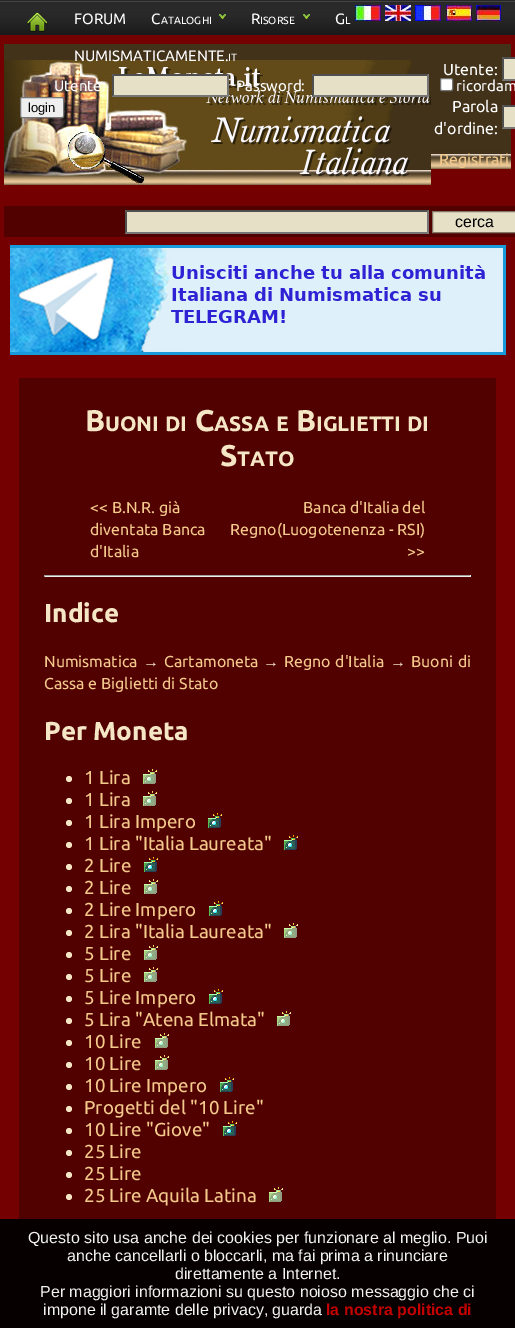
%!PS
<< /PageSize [515 1328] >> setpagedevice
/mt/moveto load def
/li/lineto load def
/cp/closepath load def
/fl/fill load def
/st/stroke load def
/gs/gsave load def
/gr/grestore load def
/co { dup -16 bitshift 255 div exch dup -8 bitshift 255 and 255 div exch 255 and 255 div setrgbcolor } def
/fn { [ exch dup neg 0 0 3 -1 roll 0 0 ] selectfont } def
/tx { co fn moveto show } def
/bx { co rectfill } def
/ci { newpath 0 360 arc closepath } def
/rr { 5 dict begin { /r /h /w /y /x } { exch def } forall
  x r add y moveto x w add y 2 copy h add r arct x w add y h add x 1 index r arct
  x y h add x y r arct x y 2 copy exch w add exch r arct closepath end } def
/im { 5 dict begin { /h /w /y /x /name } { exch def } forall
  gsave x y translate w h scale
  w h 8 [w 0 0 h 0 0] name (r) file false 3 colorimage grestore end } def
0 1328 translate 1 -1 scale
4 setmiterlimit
0 0 515 1328 16#750001 bx
0 1219 515 109 16#060000 bx
(media/6.raw) 0 0 515 35 im
(media/1.raw) 355 5 26 16 im
(media/2.raw) 385 5 26 16 im
(media/3.raw) 415 5 26 16 im
(media/4.raw) 446 5 26 16 im
(media/5.raw) 476 5 25 16 im
(media/7.raw) 27 12 21 20 im
(media/8.raw) 219 14 7 5 im
(media/8.raw) 303 14 7 5 im
(media/9.raw) 4 44 507 125 im
(media/10.raw) 4 60 427 125 im
112 74 117 23 16#E6E0C6 bx
16#4F4F4F co
112 74 mt 229 74 li 227 76 li 114 76 li cp fl
16#767676 co
229 74 mt 229 97 li 227 95 li 227 76 li cp fl
229 97 mt 112 97 li 114 95 li 227 95 li cp fl
16#4F4F4F co
112 97 mt 112 74 li 114 76 li 114 95 li cp fl
312 74 117 23 16#E6E0C6 bx
16#4F4F4F co
312 74 mt 429 74 li 427 76 li 314 76 li cp fl
16#767676 co
429 74 mt 429 97 li 427 95 li 427 76 li cp fl
429 97 mt 312 97 li 314 95 li 427 95 li cp fl
16#4F4F4F co
312 97 mt 312 74 li 314 76 li 314 95 li cp fl
16#FFFFFF co
440.5 78.5 12 12 1.5 rr gs fl gr
16#767676 co
st
16#EFEFEF co
20.5 97.5 43 20 1.5 rr gs fl gr
16#767676 co
st
502 57 13 24 16#E6E0C6 bx
16#4F4F4F co
502 57 mt 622 57 li 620 59 li 504 59 li cp fl
16#767676 co
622 81 mt 502 81 li 504 79 li 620 79 li cp fl
16#4F4F4F co
502 81 mt 502 57 li 504 59 li 504 79 li cp fl
502 105 13 24 16#E6E0C6 bx
16#4F4F4F co
502 105 mt 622 105 li 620 107 li 504 107 li cp fl
16#767676 co
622 129 mt 502 129 li 504 127 li 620 127 li cp fl
16#4F4F4F co
502 129 mt 502 105 li 504 107 li 504 127 li cp fl
4 206 511 31 16#520101 bx
125 210 304 24 16#E6E0C6 bx
16#4F4F4F co
125 210 mt 429 210 li 427 212 li 127 212 li cp fl
16#767676 co
429 210 mt 429 234 li 427 232 li 427 212 li cp fl
429 234 mt 125 234 li 127 232 li 427 232 li cp fl
16#4F4F4F co
125 234 mt 125 210 li 127 212 li 127 232 li cp fl
16#E6E0C6 co
432.5 211.5 mt 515.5 211.5 li 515.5 232.5 li 432.5 232.5 li cp gs fl gr
16#857666 co
st
(media/11.raw) 10 245 496 110 im
19 378 477 841 16#520101 bx
44 575 427 1 16#9F9F9F bx
470 575 1 2 16#EEEEEE bx
44 576 427 1 16#EEEEEE bx
44 575 1 2 16#9F9F9F bx
16#F5E6C6 co
69 779 3 ci fl
(media/12.raw) 143 769 14 15 im
69 801 3 ci fl
(media/12.raw) 143 791 14 15 im
69 823 3 ci fl
(media/13.raw) 208 813 14 15 im
69 845 3 ci fl
(media/13.raw) 284 835 14 15 im
69 867 3 ci fl
(media/13.raw) 144 857 14 15 im
69 889 3 ci fl
(media/12.raw) 144 879 14 15 im
69 911 3 ci fl
(media/13.raw) 209 901 14 15 im
69 933 3 ci fl
(media/12.raw) 284 923 14 15 im
69 955 3 ci fl
(media/12.raw) 144 945 14 15 im
69 977 3 ci fl
(media/12.raw) 144 967 14 15 im
69 999 3 ci fl
(media/13.raw) 209 989 14 15 im
69 1021 3 ci fl
(media/12.raw) 277 1011 14 15 im
69 1043 3 ci fl
(media/12.raw) 155 1033 14 15 im
69 1065 3 ci fl
(media/12.raw) 155 1055 14 15 im
69 1087 3 ci fl
(media/13.raw) 220 1077 14 15 im
69 1109 3 ci fl
69 1131 3 ci fl
(media/13.raw) 223 1121 14 15 im
69 1153 3 ci fl
69 1175 3 ci fl
69 1197 3 ci fl
(media/12.raw) 269 1187 14 15 im
(FORUM) 74 24 /Ubuntu-Regular 15 16#FFFFFF tx
(C) 151 24 /Ubuntu-Regular 15 16#FFFFFF tx
(ATALOGHI) 161 24 /Ubuntu-Regular 10.5 16#FFFFFF tx
(R) 251 24 /Ubuntu-Regular 15 16#FFFFFF tx
(ISORSE) 260 24 /Ubuntu-Regular 10.5 16#FFFFFF tx
(G) 335 24 /Ubuntu-Regular 15 16#FFFFFF tx
(L) 345 24 /Ubuntu-Regular 10.5 16#FFFFFF tx
(NUMISMATICAMENTE.) 74 61 /Ubuntu-Regular 15 16#FFFFFF tx
(IT) 228 61 /Ubuntu-Regular 10.5 16#FFFFFF tx
(Utente:) 54 91 /Ubuntu-Regular 15 16#FFFFFF tx
(Password:) 236 91 /Ubuntu-Regular 15 16#FFFFFF tx
(ricordam) 456 91 /Ubuntu-Regular 15 16#FFFFFF tx
(login) 28 112 /LiberationSans-Regular 13 16#000000 tx
(Utente:) 443 75 /Ubuntu-Regular 15.9 16#FFFFFF tx
(Parola) 452 112 /Ubuntu-Regular 15.9 16#FFFFFF tx
(d'ordine:) 434 134 /Ubuntu-Regular 15.9 16#FFFFFF tx
(Registrati) 439 165 /Ubuntu-Regular 15.9 16#F4CA8C tx
(cerca) 455 227 /LiberationSans-Regular 15.9 16#000000 tx
(B) 85 431 /Ubuntu-Bold 30 16#F5E6C6 tx
(UONI) 105 431 /Ubuntu-Bold 21 16#F5E6C6 tx
(DI) 165 431 /Ubuntu-Bold 21 16#F5E6C6 tx
(C) 195 431 /Ubuntu-Bold 30 16#F5E6C6 tx
(ASSA) 214 431 /Ubuntu-Bold 21 16#F5E6C6 tx
(E) 276 431 /Ubuntu-Bold 21 16#F5E6C6 tx
(B) 296 431 /Ubuntu-Bold 30 16#F5E6C6 tx
(IGLIETTI) 316 431 /Ubuntu-Bold 21 16#F5E6C6 tx
(DI) 407 431 /Ubuntu-Bold 21 16#F5E6C6 tx
(S) 220 466 /Ubuntu-Bold 30 16#F5E6C6 tx
(TATO) 237 466 /Ubuntu-Bold 21 16#F5E6C6 tx
(<< B.N.R. già) 90 513 /Ubuntu-Regular 15.9 16#F4CA8C tx
(diventata Banca) 90 535 /Ubuntu-Regular 15.9 16#F4CA8C tx
(d'Italia) 90 557 /Ubuntu-Regular 15.9 16#F4CA8C tx
(Banca d'Italia del) 303 513 /Ubuntu-Regular 15.9 16#F4CA8C tx
(Regno\(Luogotenenza - RSI\)) 230 535 /Ubuntu-Regular 15.9 16#F4CA8C tx
(>>) 407 557 /Ubuntu-Regular 15.9 16#F4CA8C tx
(Indice) 44 622 /Ubuntu-Bold 26 16#F5E6C6 tx
(Numismatica) 44 667 /Ubuntu-Regular 15.9 16#F4CA8C tx
(→) 143 667 /LiberationSans-Regular 15.9 16#F5E6C6 tx
(Cartamoneta) 164 667 /Ubuntu-Regular 15.9 16#F4CA8C tx
(→) 263 667 /LiberationSans-Regular 15.9 16#F5E6C6 tx
/Ubuntu-Regular 15.9 fn
16#F4CA8C co
284 667 mt 1 0 32 (Regno d'Italia) widthshow
(→) 390 667 /LiberationSans-Regular 15.9 16#F5E6C6 tx
/Ubuntu-Regular 15.9 fn
16#F4CA8C co
411 667 mt 1 0 32 (Buoni di) widthshow
(Cassa e Biglietti di Stato) 44 689 /Ubuntu-Regular 15.9 16#F4CA8C tx
(Per Moneta) 44 740 /Ubuntu-Bold 26 16#F5E6C6 tx
(1 Lira) 84 784 /Ubuntu-Regular 18.75 16#F4CA8C tx
(1 Lira) 84 806 /Ubuntu-Regular 18.75 16#F4CA8C tx
(1 Lira Impero) 84 828 /Ubuntu-Regular 18.75 16#F4CA8C tx
(1 Lira "Italia Laureata") 84 850 /Ubuntu-Regular 18.75 16#F4CA8C tx
(2 Lire) 84 872 /Ubuntu-Regular 18.75 16#F4CA8C tx
(2 Lire) 84 894 /Ubuntu-Regular 18.75 16#F4CA8C tx
(2 Lire Impero) 84 916 /Ubuntu-Regular 18.75 16#F4CA8C tx
(2 Lira "Italia Laureata") 84 938 /Ubuntu-Regular 18.75 16#F4CA8C tx
(5 Lire) 84 960 /Ubuntu-Regular 18.75 16#F4CA8C tx
(5 Lire) 84 982 /Ubuntu-Regular 18.75 16#F4CA8C tx
(5 Lire Impero) 84 1004 /Ubuntu-Regular 18.75 16#F4CA8C tx
(5 Lira "Atena Elmata") 84 1026 /Ubuntu-Regular 18.75 16#F4CA8C tx
(10 Lire) 84 1048 /Ubuntu-Regular 18.75 16#F4CA8C tx
(10 Lire) 84 1070 /Ubuntu-Regular 18.75 16#F4CA8C tx
(10 Lire Impero) 84 1092 /Ubuntu-Regular 18.75 16#F4CA8C tx
(Progetti del "10 Lire") 84 1114 /Ubuntu-Regular 18.75 16#F4CA8C tx
(10 Lire "Giove") 84 1136 /Ubuntu-Regular 18.75 16#F4CA8C tx
(25 Lire) 84 1158 /Ubuntu-Regular 18.75 16#F4CA8C tx
(25 Lire) 84 1180 /Ubuntu-Regular 18.75 16#F4CA8C tx
(25 Lire Aquila Latina) 84 1202 /Ubuntu-Regular 18.75 16#F4CA8C tx
(Questo sito usa anche dei cookies per funzionare al meglio. Puoi) 28 1243 /LiberationSans-Regular 16 16#F3F2F2 tx
(anche cancellarli o bloccarli, ma fai prima a rinunciare) 67 1261 /LiberationSans-Regular 16 16#F3F2F2 tx
(direttamente a Internet.) 175 1279 /LiberationSans-Regular 16 16#F3F2F2 tx
(Per maggiori informazioni su questo noioso messaggio che ci) 40 1297 /LiberationSans-Regular 16 16#F3F2F2 tx
(impone il garamte delle privacy, guarda) 43 1315 /LiberationSans-Regular 16 16#F3F2F2 tx
(la nostra politica di) 326 1315 /LiberationSans-Bold 16 16#C40000 tx
showpage
